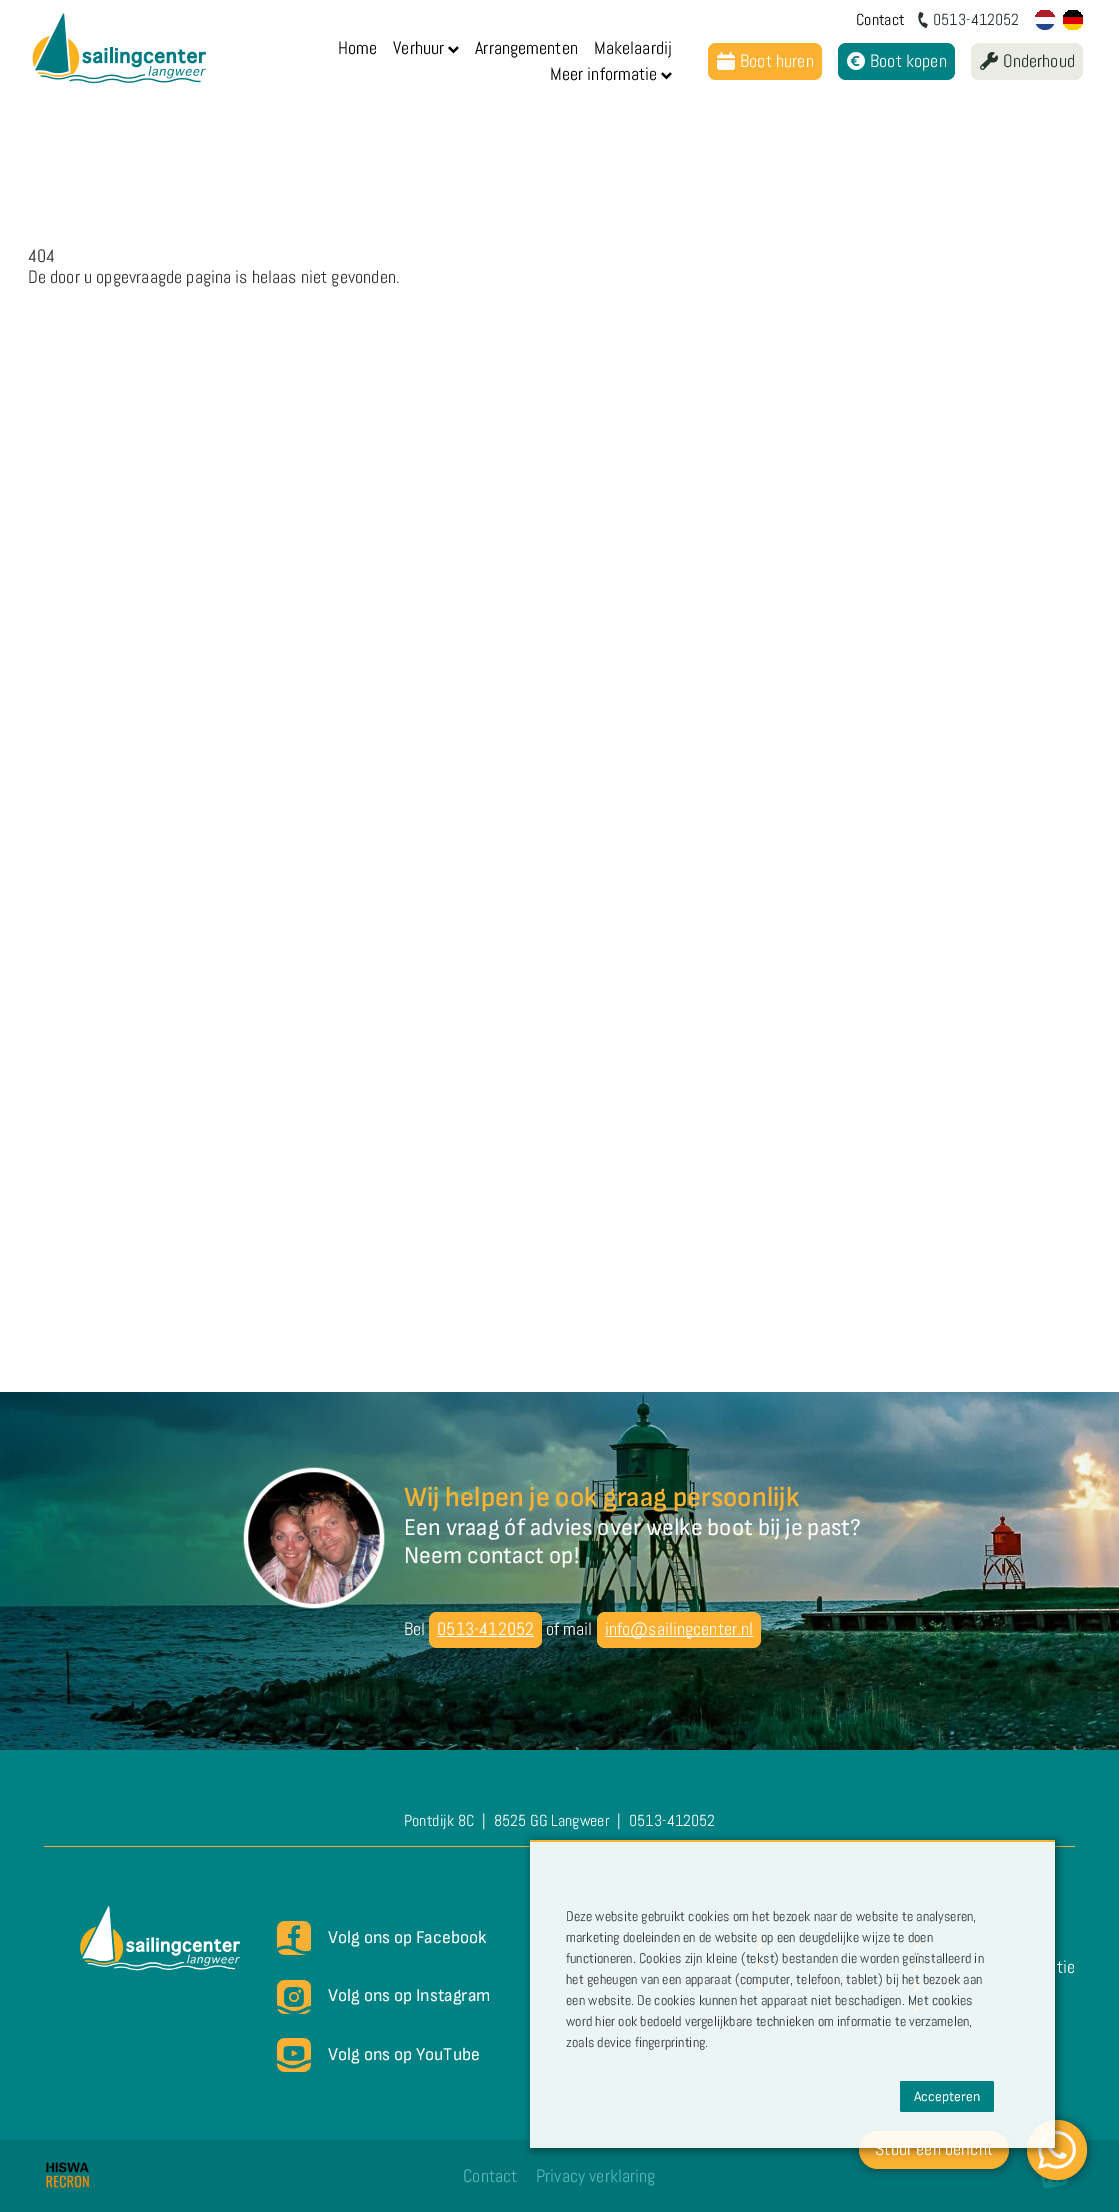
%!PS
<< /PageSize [1119 2212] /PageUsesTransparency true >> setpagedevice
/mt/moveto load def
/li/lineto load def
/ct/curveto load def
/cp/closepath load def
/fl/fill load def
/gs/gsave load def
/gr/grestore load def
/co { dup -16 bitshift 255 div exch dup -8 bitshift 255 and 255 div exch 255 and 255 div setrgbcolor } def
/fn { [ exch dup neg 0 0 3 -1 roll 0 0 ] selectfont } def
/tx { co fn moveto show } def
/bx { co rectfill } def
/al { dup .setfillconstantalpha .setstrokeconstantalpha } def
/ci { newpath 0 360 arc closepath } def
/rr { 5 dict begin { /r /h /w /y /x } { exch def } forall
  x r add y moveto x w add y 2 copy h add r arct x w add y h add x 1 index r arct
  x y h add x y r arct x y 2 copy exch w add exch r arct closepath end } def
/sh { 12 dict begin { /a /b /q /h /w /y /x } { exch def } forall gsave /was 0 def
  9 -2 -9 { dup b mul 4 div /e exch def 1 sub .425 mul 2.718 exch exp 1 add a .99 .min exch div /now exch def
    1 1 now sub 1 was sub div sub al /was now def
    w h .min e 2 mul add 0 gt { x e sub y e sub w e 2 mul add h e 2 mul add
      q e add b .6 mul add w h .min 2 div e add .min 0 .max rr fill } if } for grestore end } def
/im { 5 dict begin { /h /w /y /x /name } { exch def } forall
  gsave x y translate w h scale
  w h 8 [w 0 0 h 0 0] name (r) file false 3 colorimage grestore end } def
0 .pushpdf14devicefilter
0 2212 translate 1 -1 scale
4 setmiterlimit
0 0 1119 2212 16#FFFFFF bx
(media/1.raw) 32 13 174 71 im
(media/2.raw) 918 12 10 16 im
16#21468B co
1045 20 10 ci fl
gs
1035 10 20 20 10 rr clip newpath
16#FFFFFF co
1045 10 mt 1050.5 10 1055 14.5 1055 20 ct 1055 24 li 1035 24 li 1035 20 li 1035 14.5 1039.5 10 1045 10 ct cp fl
1035 10 20 7 16#AE1C28 bx
gr
gs
1063 10 20 20 10 rr clip newpath
1063 24 20 6 16#FFCE00 bx
1063 10 20 7 16#000000 bx
1063 17 20 7 16#DD0000 bx
gr
(media/3.raw) 448 46 11 8 im
(media/3.raw) 661 72 11 8 im
16#FCB131 co
708 43 114 37 8 rr fl
(media/4.raw) 717 52 18 18 im
16#008285 co
838 43 117 37 8 rr fl
(media/5.raw) 847 52 18 18 im
16#EAECE3 co
971 43 112 37 8 rr fl
(media/6.raw) 980 52 18 18 im
(media/7.raw) 0 1392 1119 358 im
(media/8.raw) 243 1467 142 142 im
16#FCB131 co
429 1612 113 36 8 rr fl
437 1636 97 1 16#FFFFFF bx
16#FCB131 co
597 1612 164 36 8 rr fl
605 1636 148 1 16#FFFFFF bx
0 1750 1119 390 16#008285 bx
44 1846 1031 1 16#FCB131 bx
(media/9.raw) 80 1906 160 65 im
(media/10.raw) 277 1921 34 34 im
(media/11.raw) 277 1980 34 34 im
(media/12.raw) 277 2038 34 34 im
(media/13.raw) 756 1939 8 12 im
(media/14.raw) 756 1960 8 12 im
(media/15.raw) 756 1981 8 11 im
(media/16.raw) 913 1940 8 11 im
(media/17.raw) 913 1960 8 12 im
(media/18.raw) 913 1981 7 12 im
(media/19.raw) 913 2002 8 11 im
0 2140 1119 72 16#007578 bx
(media/20.raw) 46 2162 44 26 im
(media/21.raw) 1040 2174 28 15 im
16#141414 co
860 2132 150 38 19 5 .5 sh
16#FCB131 co
859 2131 150 38 19 rr fl
16#141414 co
1028 2121 60 60 30 5 .5 sh
16#FCB131 co
1057 2150 30 ci fl
(media/22.raw) 1038 2131 38 38 im
gs
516 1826 mt 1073 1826 li 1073 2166 li 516 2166 li cp 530 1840 mt 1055 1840 li 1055 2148 li 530 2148 li cp eoclip newpath
16#000000 co
532 1842 525 308 0 5 .5 sh
gr
530 1840 525 2 16#FCB131 bx
(Contact) 856 25 /Abel-Regular 16 16#000000 tx
(0513-412052) 933 25 /Abel-Regular 16 16#26332B tx
(Home) 338 54 /Abel-Regular 18 16#000000 tx
(Verhuur) 393 54 /Abel-Regular 18 16#000000 tx
(Arrangementen) 475 54 /Abel-Regular 18 16#000000 tx
(Makelaardij) 594 54 /Abel-Regular 18 16#000000 tx
(Meer informatie) 550 80 /Abel-Regular 18 16#000000 tx
(Boot huren) 740 67 /Abel-Regular 18 16#FFFFFF tx
(Boot kopen) 870 67 /Abel-Regular 18 16#FFFFFF tx
(Onderhoud) 1003 67 /Abel-Regular 18 16#26332B tx
(404) 28 262 /Abel-Regular 18 16#333333 tx
(De door u opgevraagde pagina is helaas niet gevonden.) 28 283 /Abel-Regular 18 16#333333 tx
(Wij helpen je ook graag persoonlijk) 404 1506 /SofiaSansSemiCondensed-SemiBold 28 16#FCB131 tx
(Een vraag óf advies over welke boot bij je past?) 404 1535 /SofiaSansSemiCondensed-Regular 24 16#FFFFFF tx
(Neem contact op!) 404 1563 /SofiaSansSemiCondensed-Regular 24 16#FFFFFF tx
(Bel) 404 1635 /Abel-Regular 18 16#FFFFFF tx
(0513-412052) 437 1635 /Abel-Regular 18 16#FFFFFF tx
(of mail) 546 1635 /Abel-Regular 18 16#FFFFFF tx
(info@sailingcenter.nl) 605 1635 /Abel-Regular 18 16#FFFFFF tx
(Pontdijk 8C) 404 1826 /Abel-Regular 16 16#FFFFFF tx
(|) 482 1826 /Abel-Regular 16 16#FFFFFF tx
(8525 GG Langweer) 494 1826 /Abel-Regular 16 16#FFFFFF tx
(|) 617 1826 /Abel-Regular 16 16#FFFFFF tx
(0513-412052) 629 1826 /Abel-Regular 16 16#FFFFFF tx
(Volg ons op Facebook) 328 1943 /SofiaSansSemiCondensed-Regular 18 16#FFFFFF tx
(Volg ons op Instagram) 328 2001 /SofiaSansSemiCondensed-Regular 18 16#FFFFFF tx
(Volg ons op YouTube) 328 2060 /SofiaSansSemiCondensed-Regular 18 16#FFFFFF tx
(tie) 1057 1973 /Abel-Regular 18 16#FFFFFF tx
(Contact) 463 2182 /Abel-Regular 18 16#5AB6B8 tx
(Privacy verklaring) 536 2182 /Abel-Regular 18 16#5AB6B8 tx
(Stuur een bericht) 875 2155 /Abel-Regular 18 16#FFFFFF tx
0.92 al
530 1842 525 306 16#FFFFFF bx
1 al
16#008285 co
900 2081 94 31 2 rr fl
(Accepteren) 914 2101 /SofiaSansSemiCondensed-Regular 14 16#FFFFFF tx
(zoals device fingerprinting.) 566 2047 /Abel-Regular 14 16#333333 tx
(word hier ook bedoeld vergelijkbare technieken om informatie te verzamelen,) 566 2026 /Abel-Regular 14 16#333333 tx
(een website. De cookies kunnen het apparaat niet beschadigen. Met cookies) 566 2005 /Abel-Regular 14 16#333333 tx
(het geheugen van een apparaat \(computer, telefoon, tablet\) bij het bezoek aan) 566 1984 /Abel-Regular 14 16#333333 tx
(functioneren. Cookies zijn kleine \(tekst\) bestanden die worden geïnstalleerd in) 566 1963 /Abel-Regular 14 16#333333 tx
(marketing doeleinden en de website op een deugdelijke wijze te doen) 566 1942 /Abel-Regular 14 16#333333 tx
(Deze website gebruikt cookies om het bezoek naar de website te analyseren,) 566 1921 /Abel-Regular 14 16#333333 tx
.poppdf14devicefilter showpage
